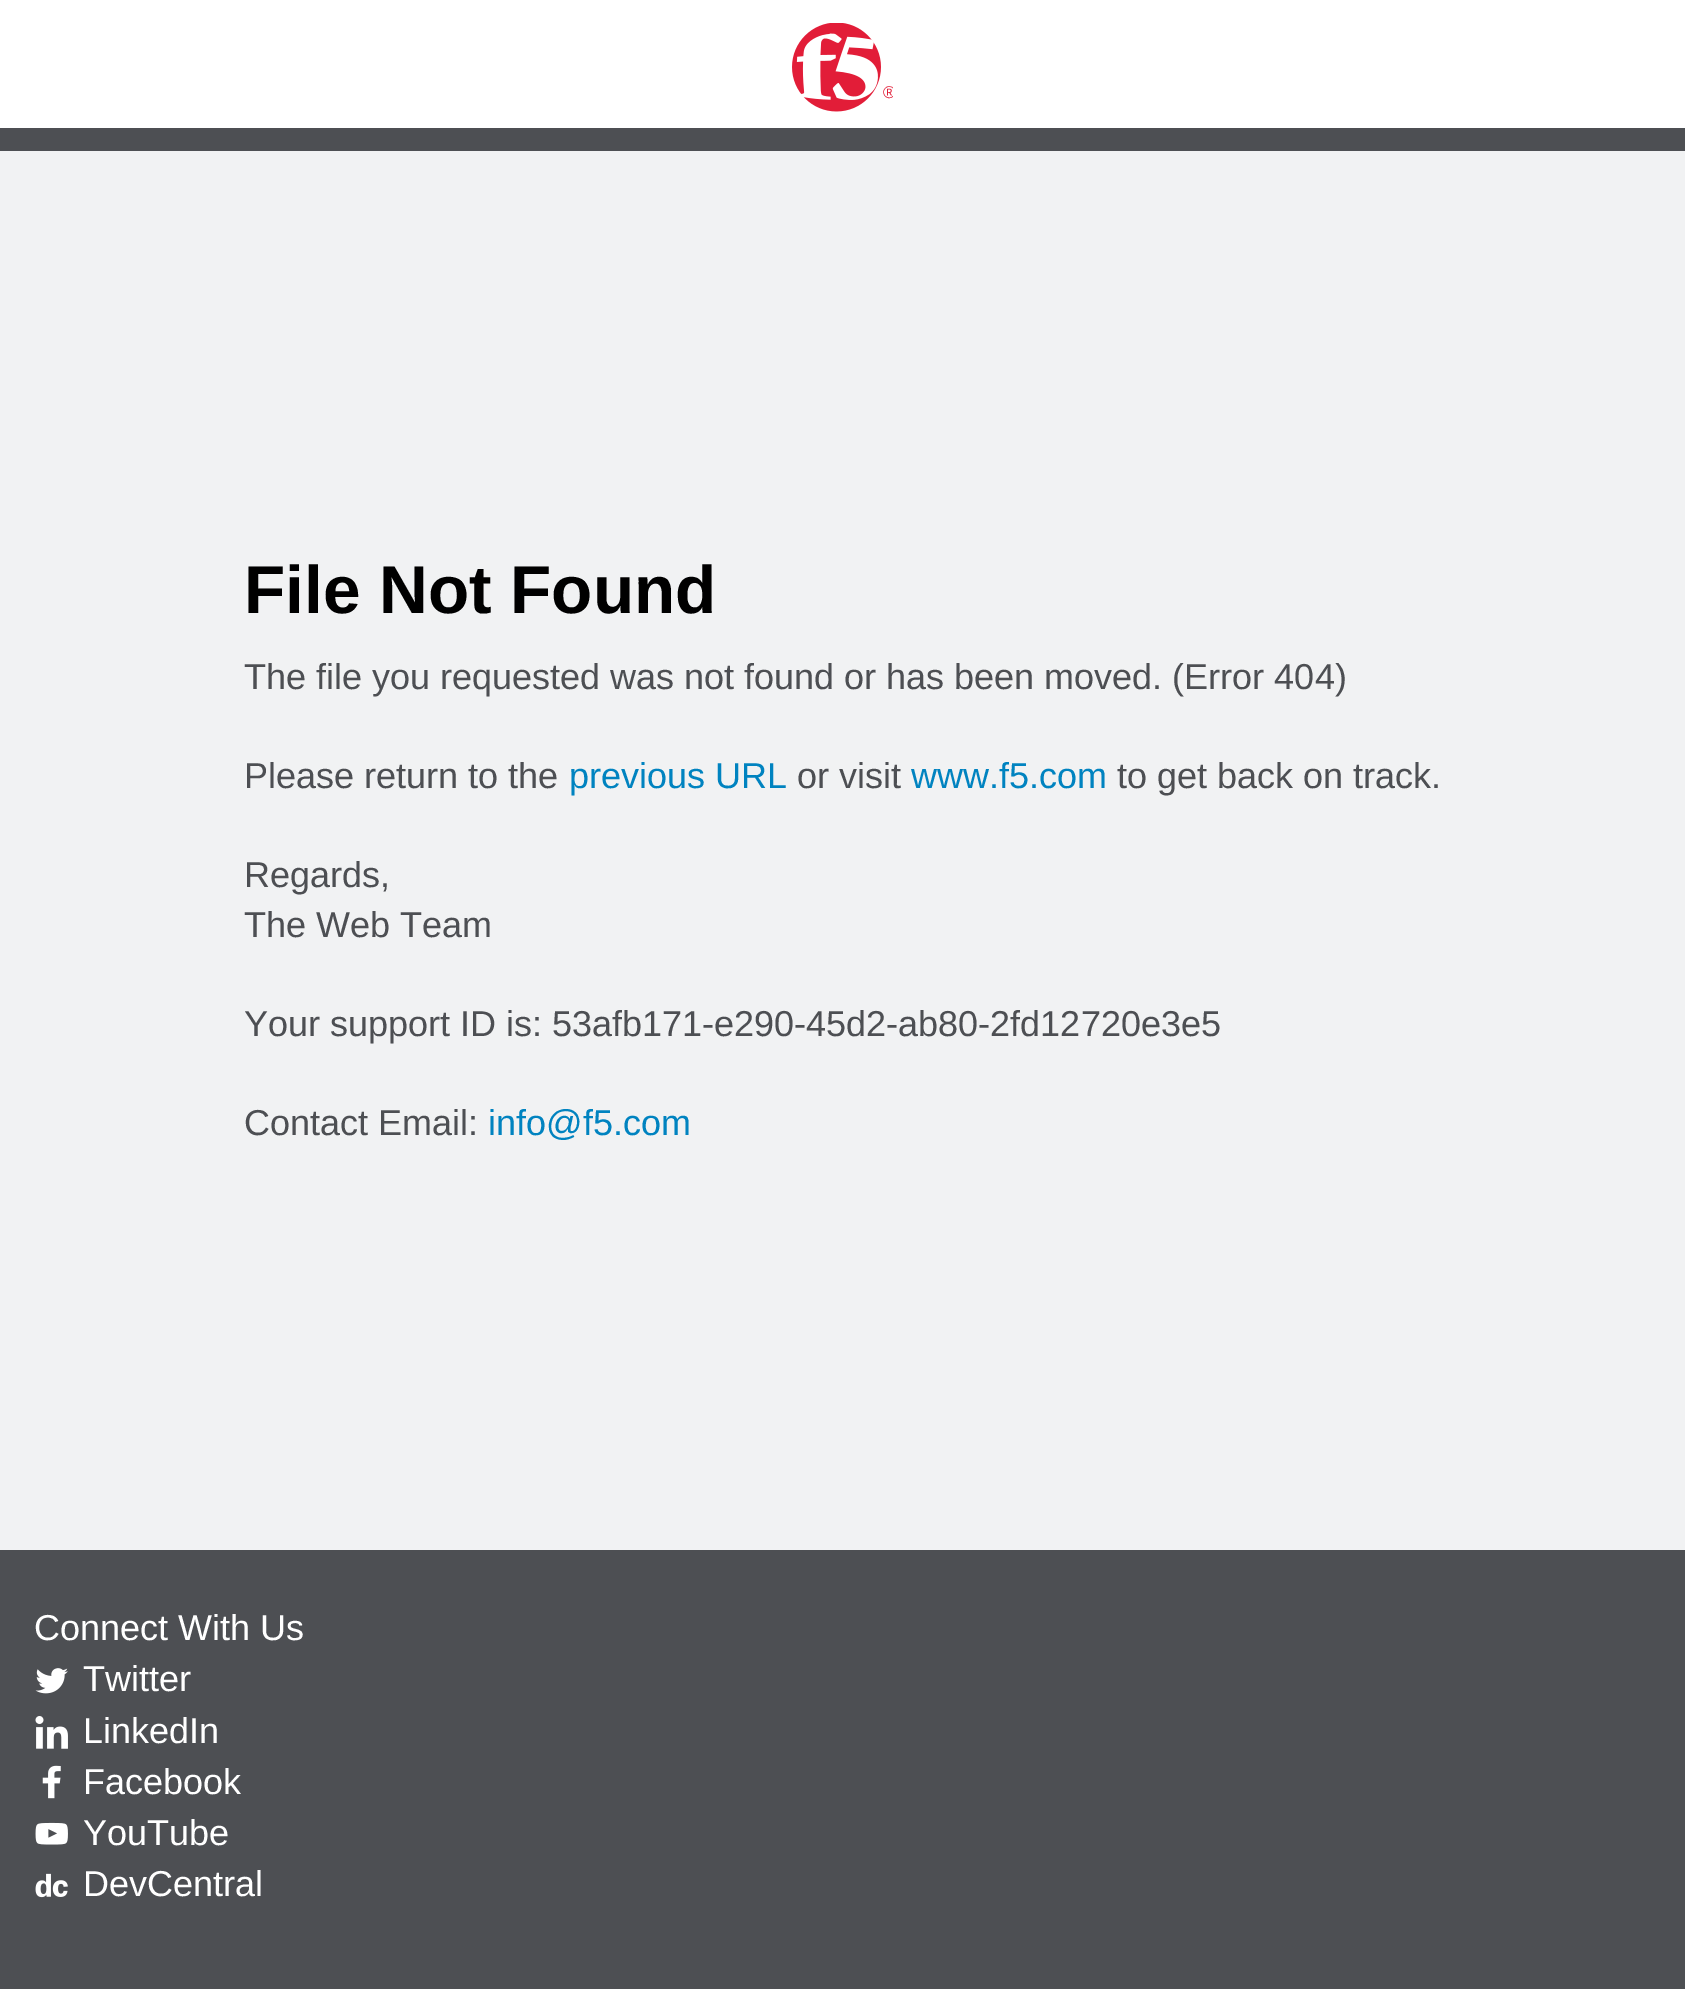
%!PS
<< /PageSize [1685 2007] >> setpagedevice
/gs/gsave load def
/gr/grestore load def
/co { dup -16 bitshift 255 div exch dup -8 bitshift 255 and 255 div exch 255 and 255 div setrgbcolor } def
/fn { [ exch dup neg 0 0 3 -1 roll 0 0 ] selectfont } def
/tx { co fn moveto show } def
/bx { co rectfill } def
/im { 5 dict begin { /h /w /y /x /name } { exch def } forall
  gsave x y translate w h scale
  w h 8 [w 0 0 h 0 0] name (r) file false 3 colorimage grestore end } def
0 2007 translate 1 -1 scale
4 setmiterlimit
0 0 1685 2007 16#FFFFFF bx
0 128 1685 23 16#4D4F53 bx
(media/1.raw) 792 23 89 89 im
0 151 1685 1399 16#F1F2F3 bx
0 1550 1685 439 16#4D4F53 bx
(media/2.raw) 35 1668 33 26 im
(media/3.raw) 35 1716 33 33 im
(media/4.raw) 42 1765 19 34 im
(media/5.raw) 35 1822 33 23 im
(media/6.raw) 35 1873 33 25 im
gs
792 23 101 90 rectclip
(®) 883 98 /LiberationSans-Regular 17 16#E21D38 tx
gr
(File Not Found) 244 613 /LiberationSans-Bold 67.5 16#000000 tx
(The file you requested was not found or has been moved. \(Error 404\)) 244 689 /LiberationSans-Regular 36 16#4D4F53 tx
(Please return to the) 244 788 /LiberationSans-Regular 36 16#4D4F53 tx
(previous URL) 569 788 /LiberationSans-Regular 36 16#0083C0 tx
(or visit) 797 788 /LiberationSans-Regular 36 16#4D4F53 tx
(www.f5.com) 911 788 /LiberationSans-Regular 36 16#0083C0 tx
(to get back on track.) 1117 788 /LiberationSans-Regular 36 16#4D4F53 tx
(Regards,) 244 887 /LiberationSans-Regular 36 16#4D4F53 tx
(The Web Team) 244 937 /LiberationSans-Regular 36 16#4D4F53 tx
(Your support ID is: 53afb171-e290-45d2-ab80-2fd12720e3e5) 244 1036 /LiberationSans-Regular 36 16#4D4F53 tx
(Contact Email:) 244 1135 /LiberationSans-Regular 36 16#4D4F53 tx
(info@f5.com) 488 1135 /LiberationSans-Regular 36 16#0083C0 tx
(Connect With Us) 34 1640 /LiberationSans-Regular 36 16#FFFFFF tx
(Twitter) 83 1691 /LiberationSans-Regular 36 16#FFFFFF tx
(LinkedIn) 83 1743 /LiberationSans-Regular 36 16#FFFFFF tx
(Facebook) 83 1794 /LiberationSans-Regular 36 16#FFFFFF tx
(YouTube) 83 1845 /LiberationSans-Regular 36 16#FFFFFF tx
(DevCentral) 83 1896 /LiberationSans-Regular 36 16#FFFFFF tx
showpage
